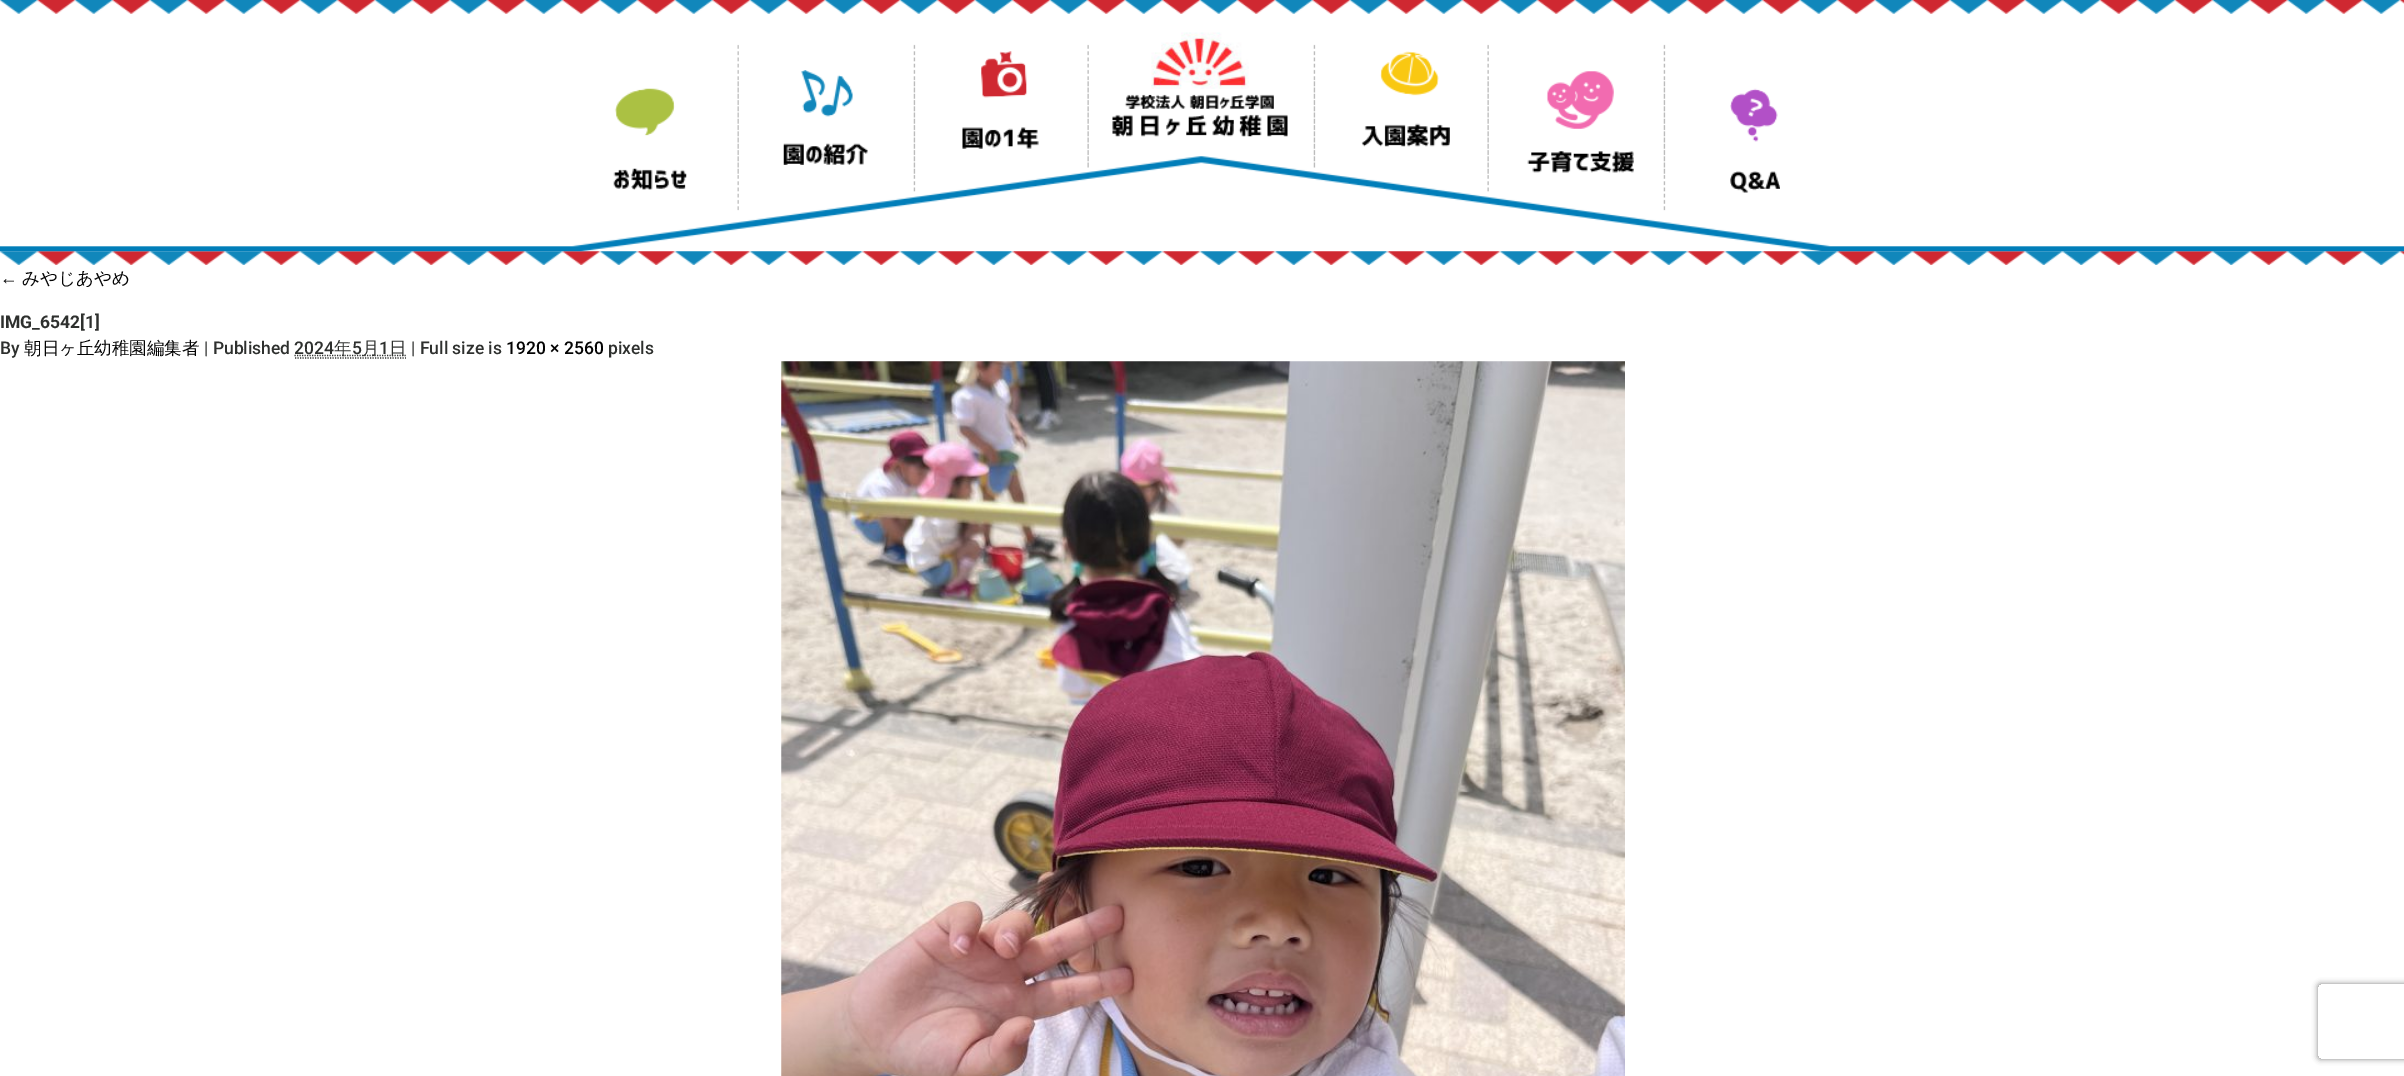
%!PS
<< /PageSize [2404 1076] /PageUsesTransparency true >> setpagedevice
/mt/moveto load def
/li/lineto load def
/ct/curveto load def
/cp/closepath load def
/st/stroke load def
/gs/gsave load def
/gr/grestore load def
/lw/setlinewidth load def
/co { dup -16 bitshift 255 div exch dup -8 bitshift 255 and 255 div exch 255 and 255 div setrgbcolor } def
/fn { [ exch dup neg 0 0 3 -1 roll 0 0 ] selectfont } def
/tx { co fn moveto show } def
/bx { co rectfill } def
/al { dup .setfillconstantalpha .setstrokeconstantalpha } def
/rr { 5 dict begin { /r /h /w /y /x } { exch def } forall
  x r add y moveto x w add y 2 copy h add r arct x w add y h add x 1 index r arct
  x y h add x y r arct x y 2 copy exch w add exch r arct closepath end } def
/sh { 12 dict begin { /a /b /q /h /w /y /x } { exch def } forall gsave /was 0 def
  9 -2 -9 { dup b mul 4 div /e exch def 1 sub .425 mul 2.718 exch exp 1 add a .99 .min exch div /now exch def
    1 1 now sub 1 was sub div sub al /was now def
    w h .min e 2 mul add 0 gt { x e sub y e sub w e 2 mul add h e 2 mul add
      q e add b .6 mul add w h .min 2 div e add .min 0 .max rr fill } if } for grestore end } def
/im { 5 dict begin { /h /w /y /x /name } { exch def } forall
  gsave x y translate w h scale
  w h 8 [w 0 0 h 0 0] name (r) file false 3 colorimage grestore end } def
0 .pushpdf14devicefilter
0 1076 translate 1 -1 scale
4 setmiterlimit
0 0 2404 1076 16#FFFFFF bx
(media/1.raw) 0 0 2404 14 im
(media/10.raw) 0 251 2404 14 im
(media/2.raw) 0 44 2404 208 im
(media/3.raw) 1112 32 176 105 im
(media/4.raw) 613 88 74 102 im
(media/5.raw) 783 70 85 95 im
(media/6.raw) 962 51 77 98 im
(media/7.raw) 1361 51 89 96 im
(media/8.raw) 1527 71 107 102 im
(media/9.raw) 1730 88 50 105 im
16#2E302E co
1.2 lw
[1.25 1.25] 0 setdash
295 358 mt 406 358 li st
294.5 355.5 mt 406.5 355.5 li st
(media/11.raw) 781 361 844 715 im
gs
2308 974 mt 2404 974 li 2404 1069 li 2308 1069 li cp 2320.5 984 mt 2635.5 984 li 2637 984 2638 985 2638 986.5 ct 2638 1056.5 li 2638 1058 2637 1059 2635.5 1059 ct 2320.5 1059 li 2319 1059 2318 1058 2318 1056.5 ct 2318 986.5 li 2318 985 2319 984 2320.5 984 ct cp eoclip newpath
16#808080 co
2318 984 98 75 2.5 3 1 sh
gr
(←) 0 284 /LiberationSans-Regular 17.5 16#040404 tx
(みやじあやめ) 22 284 /WenQuanYiZenHei-Medium 17.5 16#040404 tx
(IMG_6542[1]) 0 328 /Roboto-Bold 17.5 16#2E302E tx
(By) 0 354 /Roboto-Medium 17.5 16#2E302E tx
(朝日ヶ丘幼稚園編集者) 24 354 /WenQuanYiZenHei-Medium 17.5 16#040404 tx
(| Published) 204 354 /Roboto-Medium 17.5 16#2E302E tx
(2024) 294 354 /Roboto-Medium 17.5 16#2E302E tx
(年) 334 354 /WenQuanYiZenHei-Medium 17.5 16#2E302E tx
(5) 352 354 /Roboto-Medium 17.5 16#2E302E tx
(月) 362 354 /WenQuanYiZenHei-Medium 17.5 16#2E302E tx
(1) 379 354 /Roboto-Medium 17.5 16#2E302E tx
(日) 389 354 /WenQuanYiZenHei-Medium 17.5 16#2E302E tx
(| Full size is) 411 354 /Roboto-Medium 17.5 16#2E302E tx
(1920 × 2560) 506 354 /Roboto-Medium 17.5 16#040404 tx
(pixels) 608 354 /Roboto-Medium 17.5 16#2E302E tx
.poppdf14devicefilter showpage
